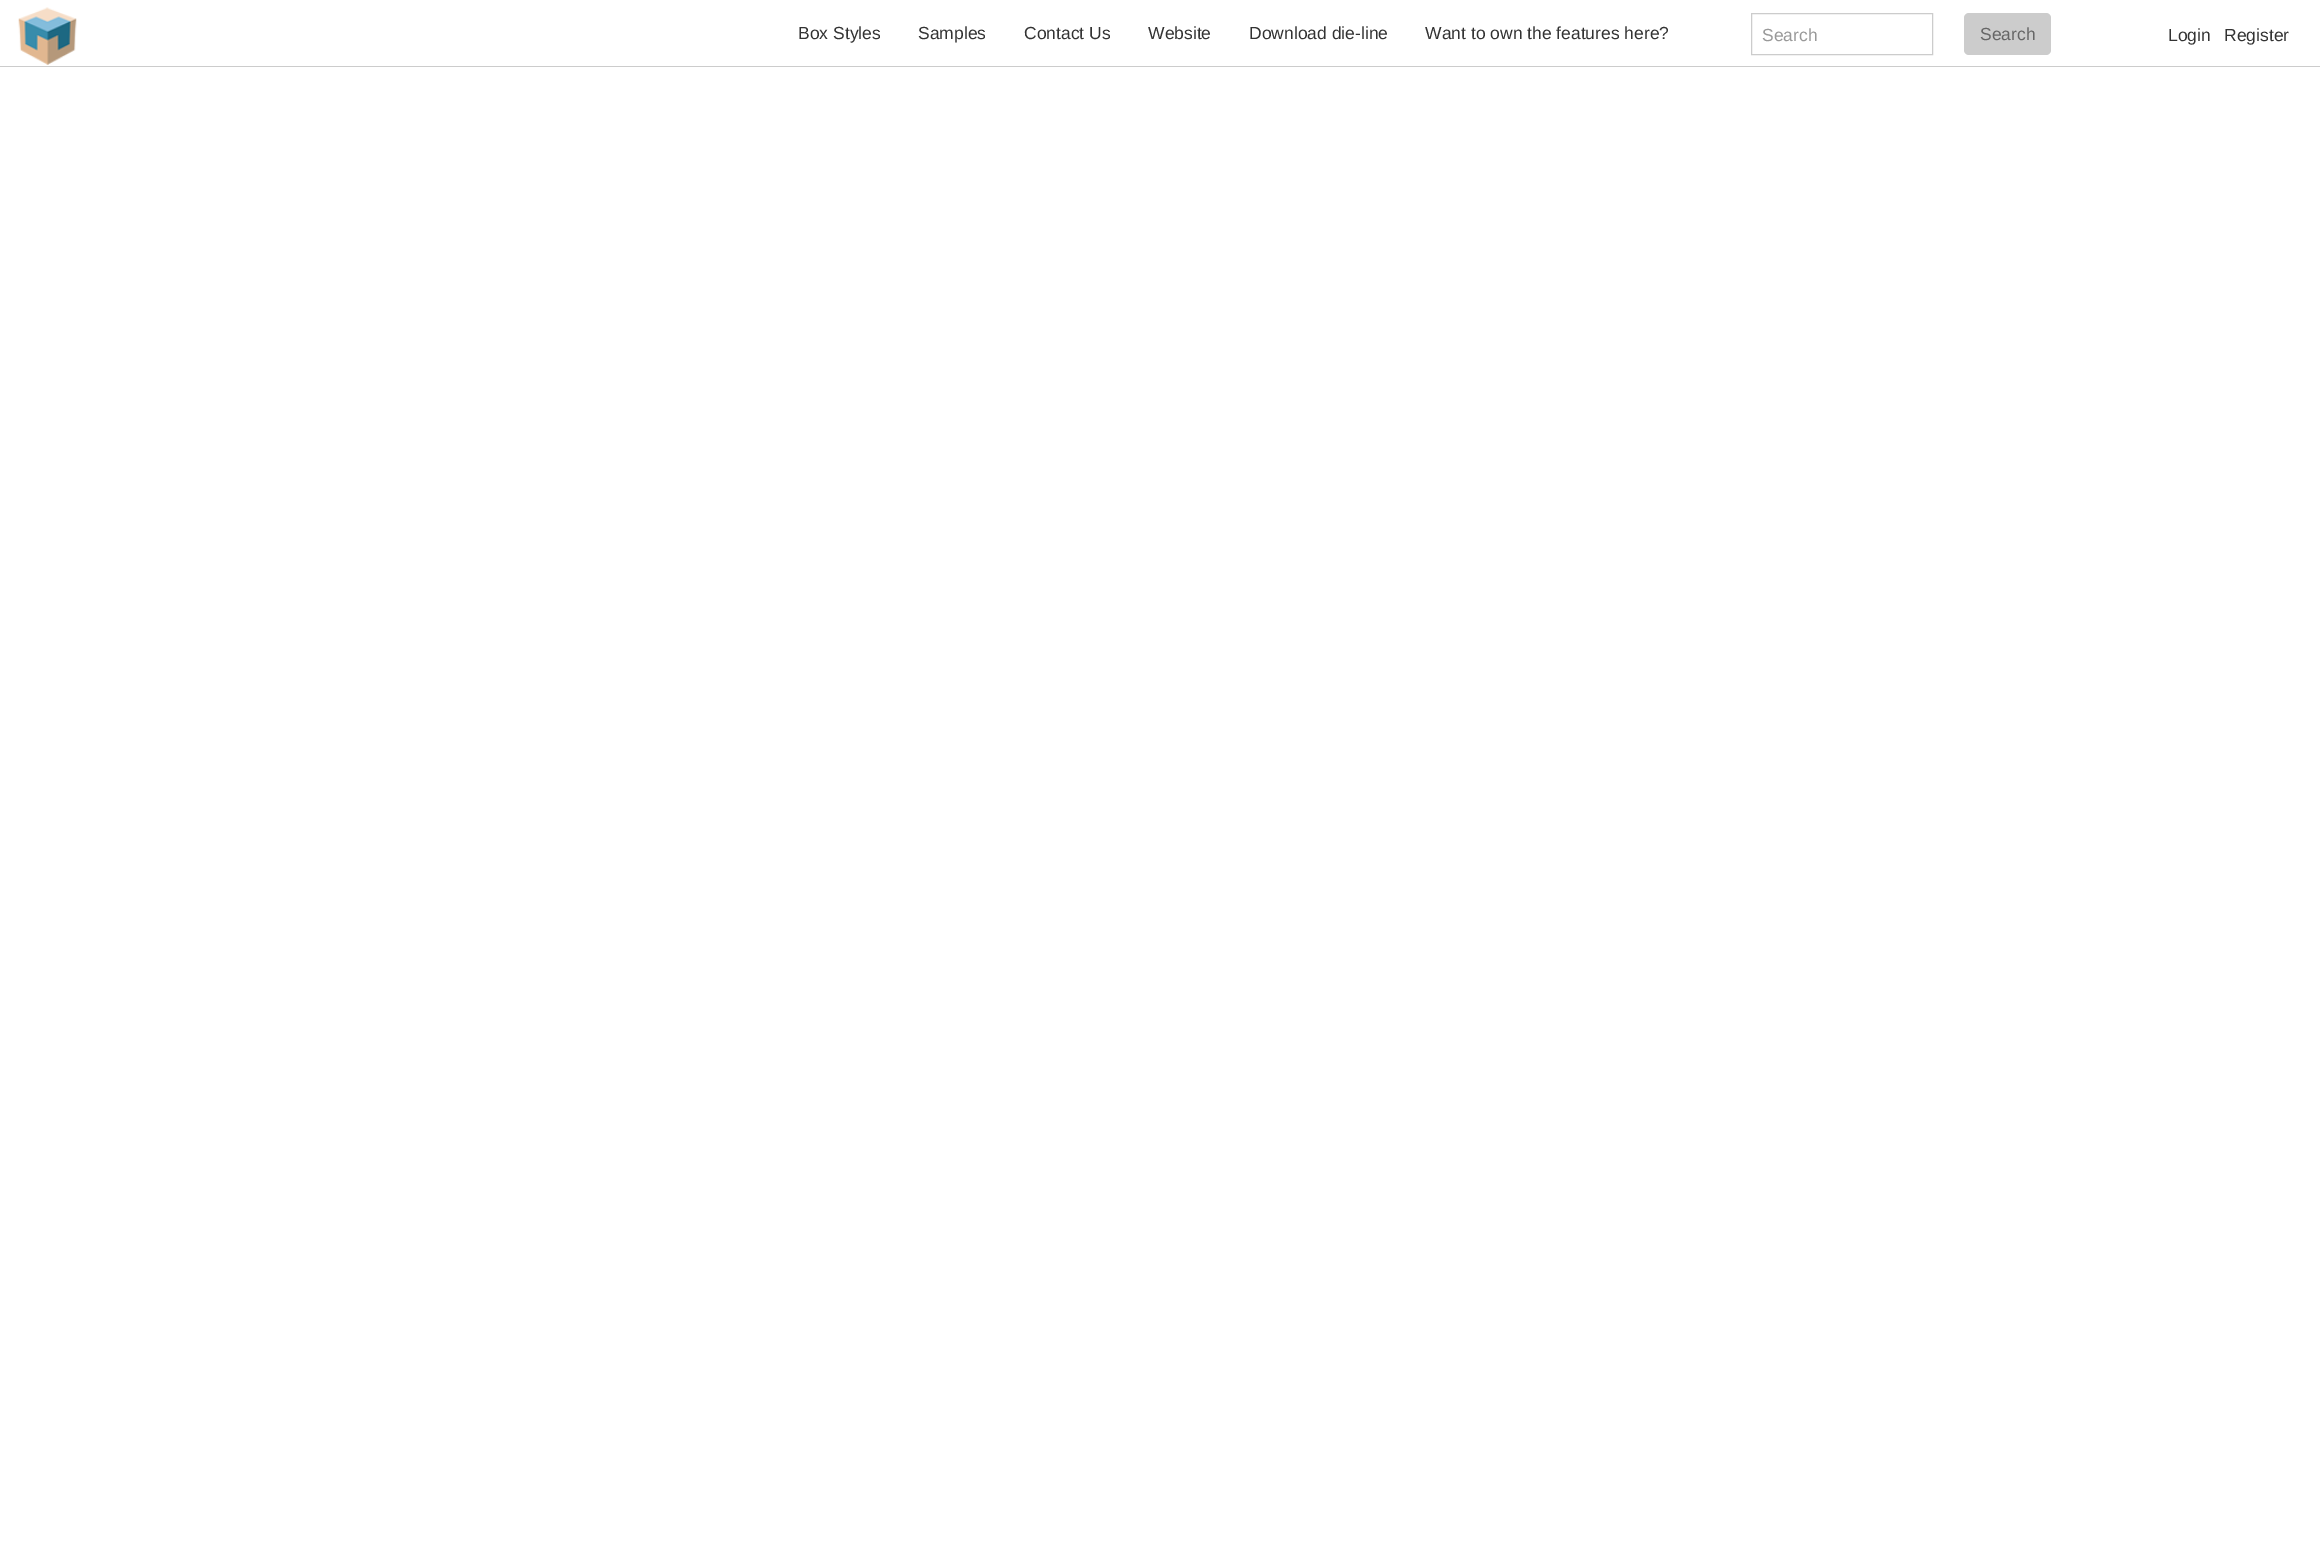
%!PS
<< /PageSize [2320 1563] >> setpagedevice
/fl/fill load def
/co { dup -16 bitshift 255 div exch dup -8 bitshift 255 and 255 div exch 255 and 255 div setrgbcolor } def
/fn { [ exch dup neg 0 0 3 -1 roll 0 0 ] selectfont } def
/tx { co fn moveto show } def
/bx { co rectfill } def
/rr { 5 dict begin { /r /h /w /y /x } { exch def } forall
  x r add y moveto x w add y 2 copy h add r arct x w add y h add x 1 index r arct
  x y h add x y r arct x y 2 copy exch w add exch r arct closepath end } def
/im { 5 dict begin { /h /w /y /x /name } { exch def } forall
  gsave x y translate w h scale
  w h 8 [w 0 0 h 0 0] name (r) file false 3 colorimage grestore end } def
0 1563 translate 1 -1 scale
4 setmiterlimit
0 0 2320 1563 16#FFFFFF bx
0 66 2320 1 16#CCCCCC bx
(media/1.raw) 18 7 59 58 im
1751.5 13.5 181 41 rectstroke
1964 13 87 42 5 rr fl
(Box Styles) 798 39 /LiberationSans-Regular 17.5 16#333333 tx
(Samples) 918 39 /LiberationSans-Regular 17.5 16#333333 tx
(Contact Us) 1024 39 /LiberationSans-Regular 17.5 16#333333 tx
(Website) 1148 39 /LiberationSans-Regular 17.5 16#333333 tx
(Download die-line) 1249 39 /LiberationSans-Regular 17.5 16#333333 tx
(Want to own the features here?) 1425 39 /LiberationSans-Regular 17.5 16#333333 tx
(Search) 1762 41 /LiberationSans-Regular 17.5 16#999999 tx
(Search) 1980 40 /LiberationSans-Regular 17.5 16#666666 tx
(Login) 2168 41 /LiberationSans-Regular 17.5 16#333333 tx
(Register) 2224 41 /LiberationSans-Regular 17.5 16#333333 tx
showpage
